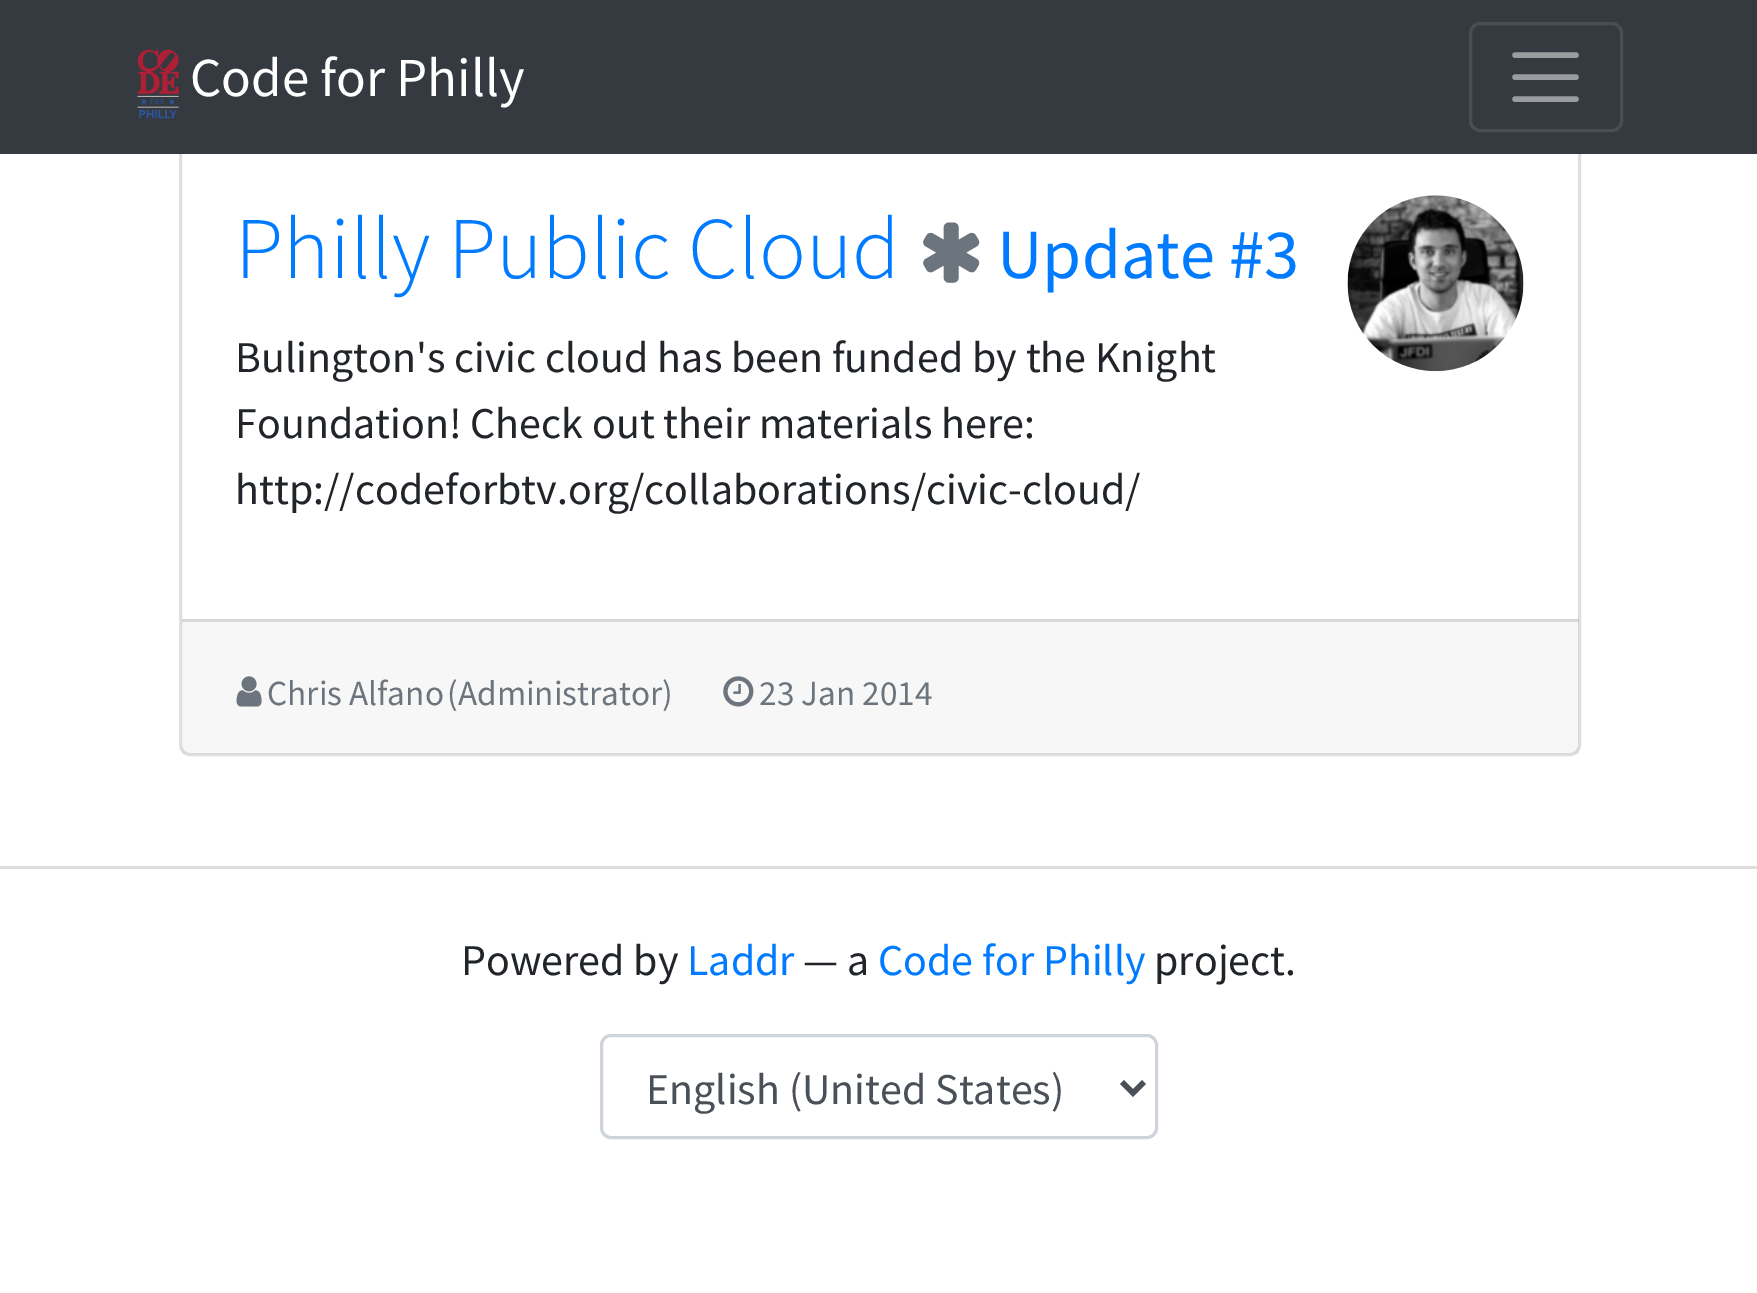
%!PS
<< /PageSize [1757 1293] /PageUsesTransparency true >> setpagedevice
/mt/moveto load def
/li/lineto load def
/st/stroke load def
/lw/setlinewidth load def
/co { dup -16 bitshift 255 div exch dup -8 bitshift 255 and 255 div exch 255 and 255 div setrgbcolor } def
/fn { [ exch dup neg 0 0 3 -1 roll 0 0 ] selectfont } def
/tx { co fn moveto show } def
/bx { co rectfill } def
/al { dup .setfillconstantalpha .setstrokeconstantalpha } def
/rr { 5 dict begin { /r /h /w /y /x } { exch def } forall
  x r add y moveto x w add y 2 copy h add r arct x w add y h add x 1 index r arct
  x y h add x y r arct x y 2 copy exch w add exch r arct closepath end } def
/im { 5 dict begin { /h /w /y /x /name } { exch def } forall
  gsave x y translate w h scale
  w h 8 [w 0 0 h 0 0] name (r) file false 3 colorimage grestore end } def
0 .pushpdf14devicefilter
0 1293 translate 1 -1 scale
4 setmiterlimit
0 0 1757 1293 16#FFFFFF bx
16#DFDFDF co
3 lw
180.5 139.5 1399 615 9.5 rr st
0 0 1757 154 16#343A40 bx
(media/1.raw) 137 49 42 70 im
16#484E53 co
1470.5 23.5 151 107 9.5 rr st
16#9A9DA0 co
5.5 lw
1 setlinecap
1515 55 mt 1576 55 li 1515 77 mt 1576 77 li 1515 99 mt 1576 99 li st
(media/2.raw) 923 222 57 61 im
(media/3.raw) 1347 195 177 177 im
0.03 al
182 619 1397 135 16#000000 bx
0.12 al
182 619 1397 3 16#000000 bx
1 al
(media/4.raw) 236 676 26 31 im
(media/5.raw) 723 676 31 31 im
0 866 1757 3 16#DDDDDD bx
16#CED4DA co
3 lw
0 setlinecap
601.5 1035.5 555 102 9.5 rr st
16#495057 co
5.5 lw
1122 1082 mt 1133 1093 li 1144 1082 li st
(Code for Philly) 190 96 /SourceSansPro-Regular 55 16#FFFFFF tx
(Philly Public Cloud) 235 278 /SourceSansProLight-Light 88 16#007BFF tx
(Update #3) 997 278 /SourceSansPro-Regular 70.5 16#007BFF tx
(Bulington's civic cloud has been funded by the Knight) 235 372 /SourceSansPro-Regular 44 16#212529 tx
(Foundation! Check out their materials here:) 235 438 /SourceSansPro-Regular 44 16#212529 tx
(http://codeforbtv.org/collaborations/civic-cloud/) 235 504 /SourceSansPro-Regular 44 16#212529 tx
(Chris Alfano \(Administrator\)) 267 705 /SourceSansPro-Regular 35.25 16#6C757D tx
(23 Jan 2014) 759 705 /SourceSansPro-Regular 35.25 16#6C757D tx
(Powered by) 461 975 /SourceSansPro-Regular 44 16#212529 tx
(Laddr) 687 975 /SourceSansPro-Regular 44 16#007BFF tx
(— a) 803 975 /SourceSansPro-Regular 44 16#212529 tx
(Code for Philly) 878 975 /SourceSansPro-Regular 44 16#007BFF tx
(project.) 1154 975 /SourceSansPro-Regular 44 16#212529 tx
(English \(United States\)) 646 1104 /SourceSansPro-Regular 44 16#495057 tx
.poppdf14devicefilter showpage
